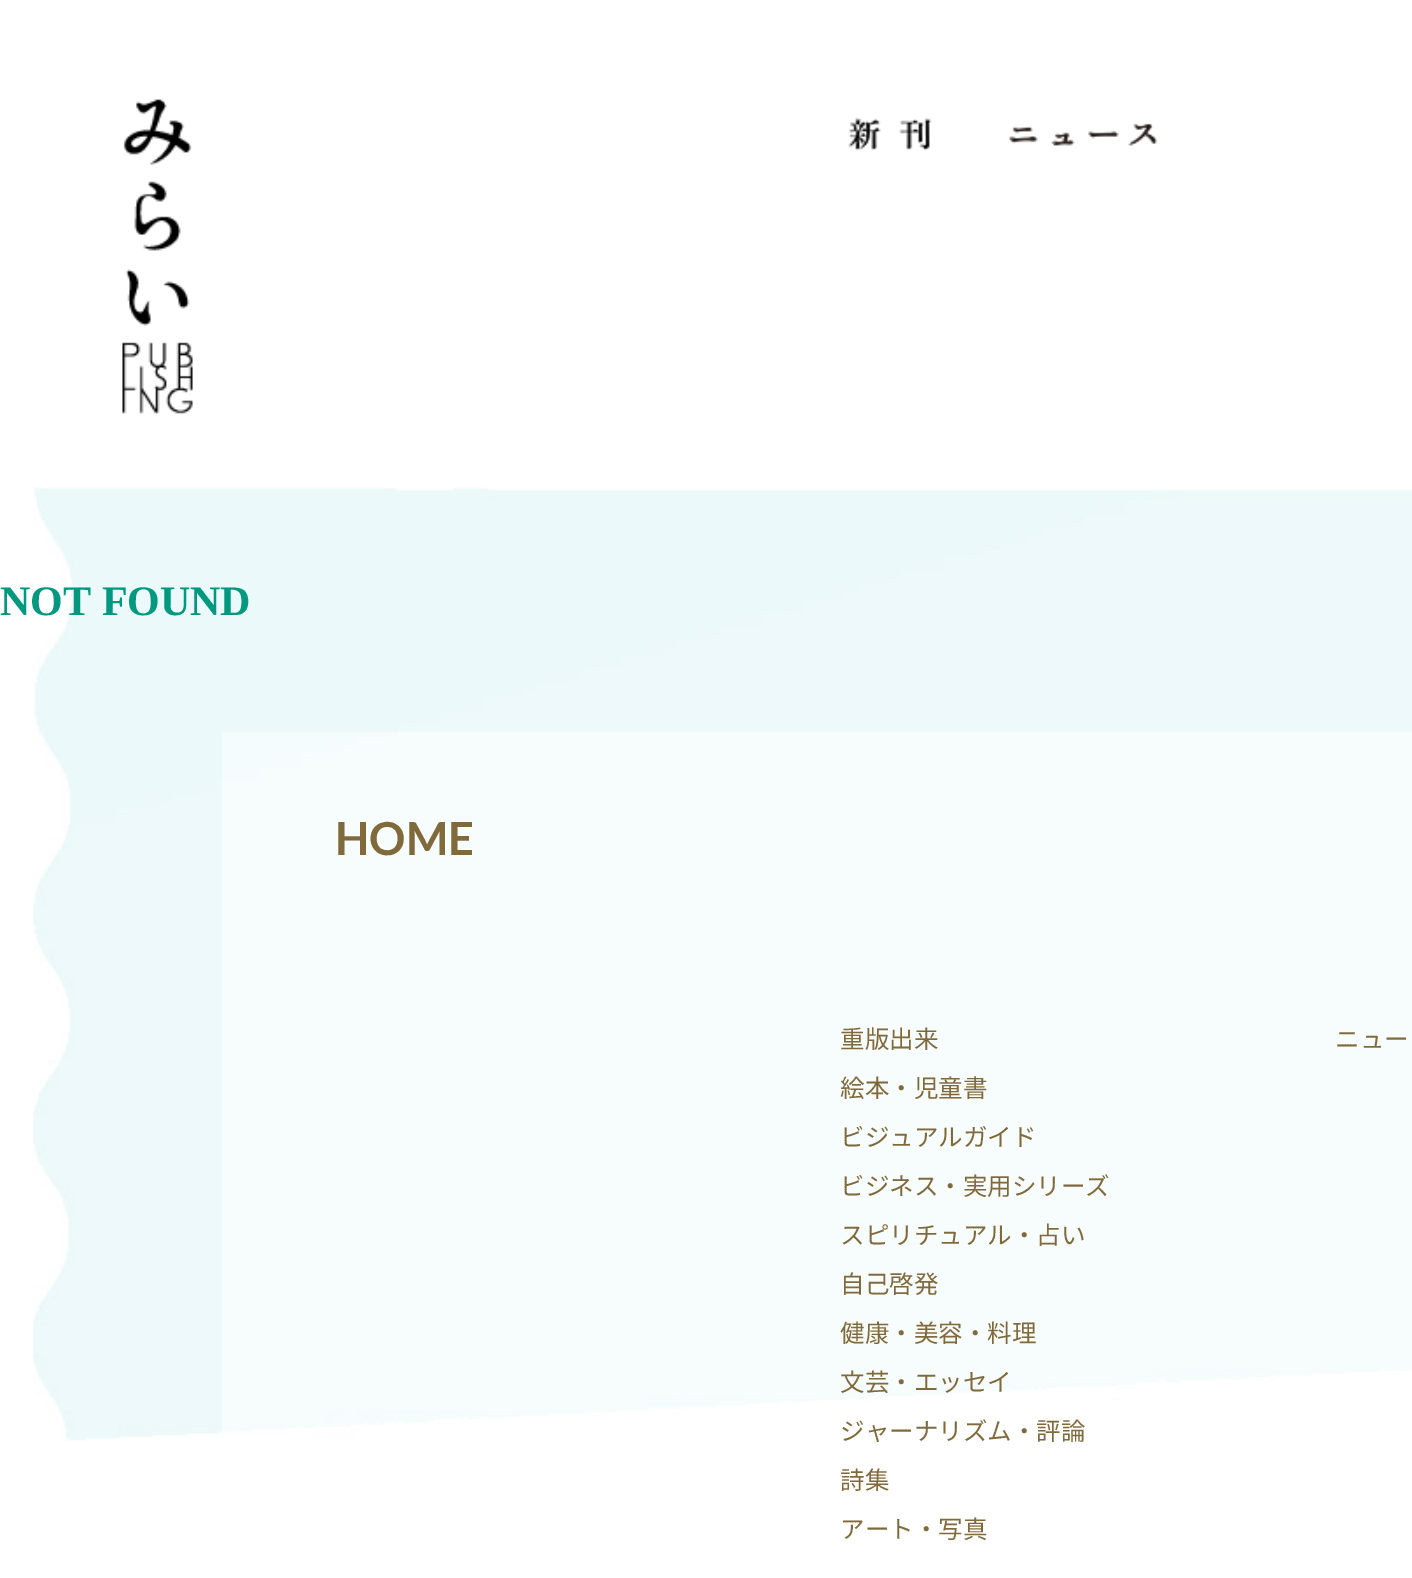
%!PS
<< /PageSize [1412 1578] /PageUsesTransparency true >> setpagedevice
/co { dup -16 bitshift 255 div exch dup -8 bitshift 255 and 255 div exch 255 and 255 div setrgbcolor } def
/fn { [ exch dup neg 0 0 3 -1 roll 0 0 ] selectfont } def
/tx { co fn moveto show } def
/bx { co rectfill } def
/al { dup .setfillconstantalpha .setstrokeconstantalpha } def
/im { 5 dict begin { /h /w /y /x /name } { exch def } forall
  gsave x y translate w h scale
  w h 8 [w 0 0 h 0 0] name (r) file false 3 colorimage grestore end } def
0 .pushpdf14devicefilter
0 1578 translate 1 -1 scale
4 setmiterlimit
0 0 1412 1578 16#FFFFFF bx
(media/1.raw) 122 99 71 315 im
(media/2.raw) 848 117 84 34 im
(media/3.raw) 1009 123 149 23 im
(media/4.raw) 33 487 1379 954 im
0.5 al
222 732 1190 700 16#FFFFFF bx
1 al
(NOT FOUND) 0 615 /LiberationSerif-Bold 42 16#009980 tx
(HOME) 335 855 /Lato-Bold 45.5 16#806A3B tx
(重版出来) 840 1048 /NotoSansJP-Regular 24.5 16#806A3B tx
(絵本・児童書) 840 1097 /NotoSansJP-Regular 24.5 16#806A3B tx
(ビジュアルガイド) 840 1146 /NotoSansJP-Regular 24.5 16#806A3B tx
(ビジネス・実用シリーズ) 840 1195 /NotoSansJP-Regular 24.5 16#806A3B tx
(スピリチュアル・占い) 840 1244 /NotoSansJP-Regular 24.5 16#806A3B tx
(自己啓発) 840 1293 /NotoSansJP-Regular 24.5 16#806A3B tx
(健康・美容・料理) 840 1342 /NotoSansJP-Regular 24.5 16#806A3B tx
(文芸・エッセイ) 840 1391 /NotoSansJP-Regular 24.5 16#806A3B tx
(ジャーナリズム・評論) 840 1440 /NotoSansJP-Regular 24.5 16#806A3B tx
(詩集) 840 1489 /NotoSansJP-Regular 24.5 16#806A3B tx
(アート・写真) 840 1538 /NotoSansJP-Regular 24.5 16#806A3B tx
(ニュー) 1335 1048 /NotoSansJP-Regular 24.5 16#806A3B tx
.poppdf14devicefilter showpage
